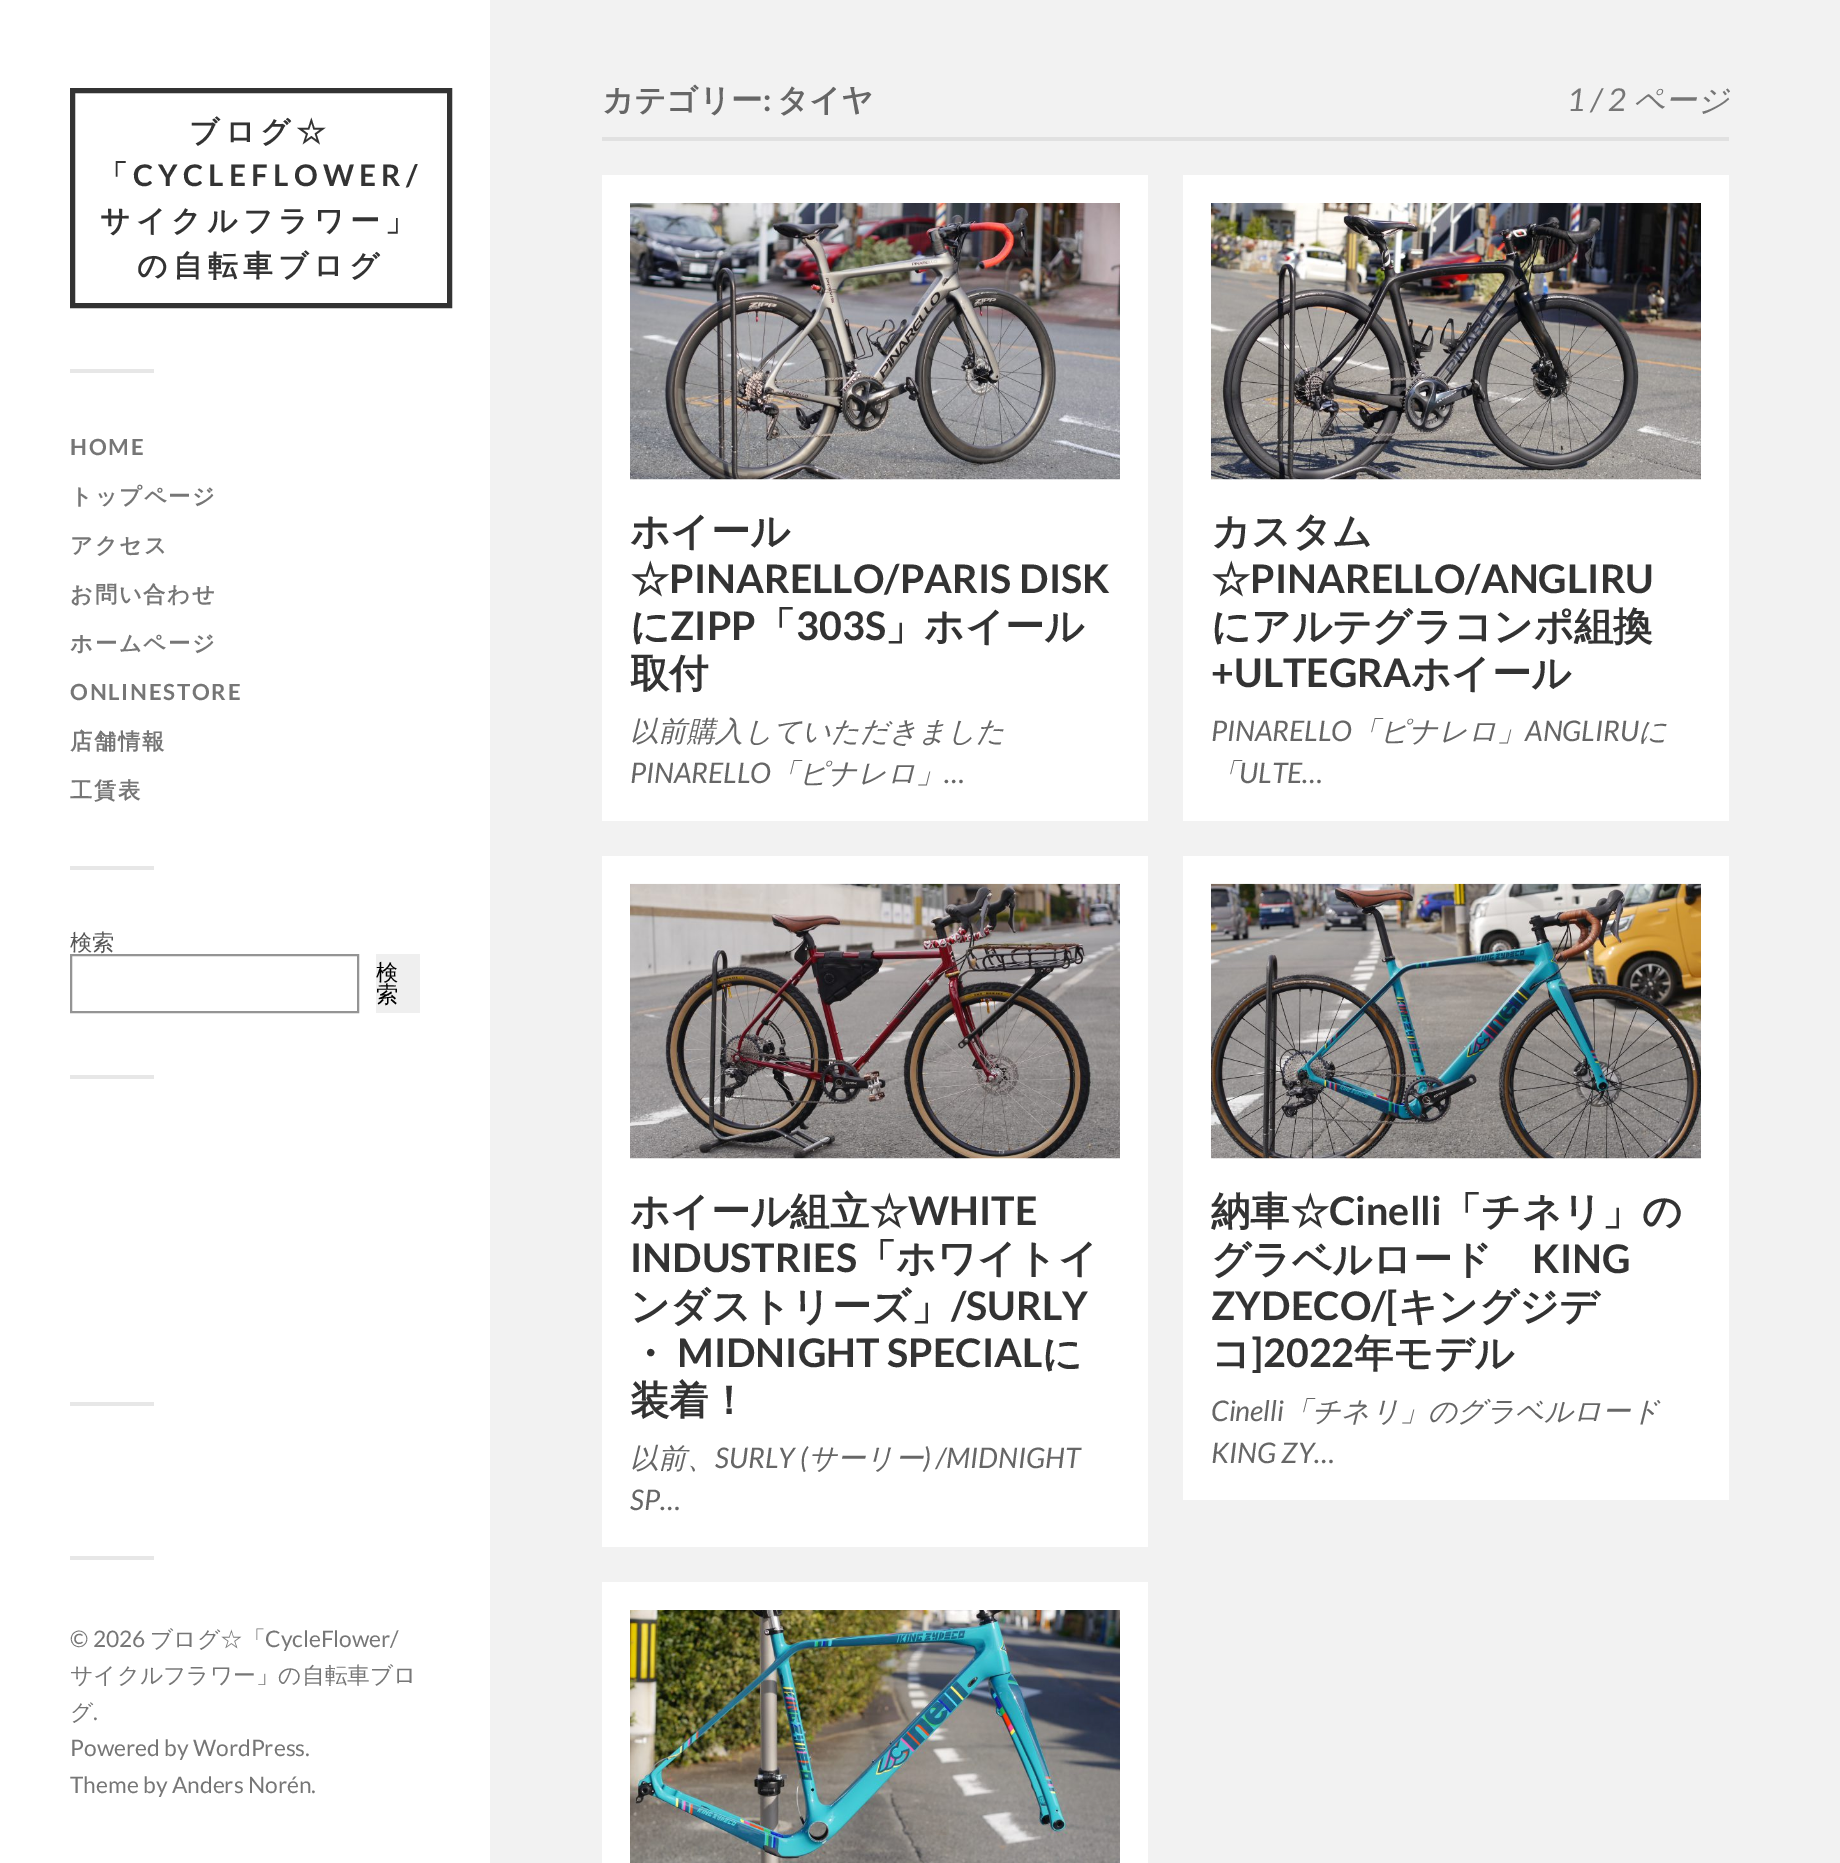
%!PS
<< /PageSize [1840 1863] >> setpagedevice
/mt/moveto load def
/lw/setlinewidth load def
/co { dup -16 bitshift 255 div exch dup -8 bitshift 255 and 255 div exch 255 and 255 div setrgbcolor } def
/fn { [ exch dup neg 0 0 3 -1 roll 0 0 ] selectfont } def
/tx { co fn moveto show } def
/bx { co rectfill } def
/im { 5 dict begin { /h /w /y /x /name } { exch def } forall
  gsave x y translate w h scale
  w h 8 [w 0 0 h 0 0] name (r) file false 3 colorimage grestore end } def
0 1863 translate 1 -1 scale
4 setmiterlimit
0 0 1840 1863 16#F2F2F2 bx
0 0 490 1863 16#FFFFFF bx
16#333333 co
5 lw
72.5 90.5 377 215 rectstroke
70 369 84 4 16#E7E7E7 bx
70 866 84 4 16#E7E7E7 bx
16#949494 co
2 lw
71 955 287 57 rectstroke
376 954 44 59 16#EFEFEF bx
70 1075 84 4 16#E7E7E7 bx
70 1402 84 4 16#E7E7E7 bx
70 1556 84 4 16#E7E7E7 bx
602 137 1127 4 16#E1E1E1 bx
602 175 546 646 16#FFFFFF bx
(media/1.raw) 630 203 490 277 im
1183 175 546 646 16#FFFFFF bx
(media/2.raw) 1211 203 490 277 im
602 856 546 691 16#FFFFFF bx
(media/3.raw) 630 883 490 276 im
1183 856 546 644 16#FFFFFF bx
(media/4.raw) 1211 883 490 276 im
602 1582 546 281 16#FFFFFF bx
(media/5.raw) 630 1610 490 253 im
/WenQuanYiZenHei-Bold 29.75 fn
16#333333 co
189 142 mt 5.25 0 (ブログ☆) ashow
98 186 mt 5.25 0 (「) ashow
/Lato-Bold 29.75 fn
133 186 mt 5.25 0 (CYCLEFLOWER/) ashow
/WenQuanYiZenHei-Bold 29.75 fn
100 231 mt 5.25 0 (サイクルフラワー」) ashow
137 276 mt 5.25 0 (の自転車ブログ) ashow
/Lato-Bold 22.25 fn
16#767676 co
70 455 mt 1.75 0 (HOME) ashow
/WenQuanYiZenHei-Bold 22.25 fn
70 504 mt 1.75 0 (トップページ) ashow
70 553 mt 1.75 0 (アクセス) ashow
70 602 mt 1.75 0 (お問い合わせ) ashow
70 651 mt 1.75 0 (ホームページ) ashow
/Lato-Bold 22.25 fn
70 700 mt 1.75 0 (ONLINESTORE) ashow
/WenQuanYiZenHei-Bold 22.25 fn
70 749 mt 1.75 0 (店舗情報) ashow
70 798 mt 1.75 0 (工賃表) ashow
(検索) 70 950 /WenQuanYiZenHei-Medium 22.25 16#555555 tx
(検) 376 980 /WenQuanYiZenHei-Medium 22.25 16#000000 tx
(索) 376 1002 /WenQuanYiZenHei-Medium 22.25 16#000000 tx
(© 2026) 70 1647 /Lato-Regular 22.75 16#767676 tx
(ブログ☆「) 150 1647 /WenQuanYiZenHei-Medium 22.75 16#767676 tx
(CycleFlower/) 265 1647 /Lato-Regular 22.75 16#767676 tx
(サイクルフラワー」の自転車ブロ) 70 1683 /WenQuanYiZenHei-Medium 22.75 16#767676 tx
(グ) 70 1720 /WenQuanYiZenHei-Medium 22.75 16#767676 tx
(.) 93 1720 /Lato-Regular 22.75 16#767676 tx
(Powered by WordPress.) 70 1756 /Lato-Regular 22.75 16#767676 tx
(Theme by Anders Norén.) 70 1793 /Lato-Regular 22.75 16#767676 tx
(カテゴリー) 602 111 /WenQuanYiZenHei-Bold 31.5 16#666666 tx
(:) 763 111 /Lato-Bold 31.5 16#666666 tx
(タイヤ) 777 111 /WenQuanYiZenHei-Bold 31.5 16#666666 tx
(1 / 2) 1567 111 /Lato-Italic 31.5 16#767676 tx
(ページ) 1633 111 /WenQuanYiZenHei-MediumItalic 31.5 16#767676 tx
(ホイール) 630 545 /WenQuanYiZenHei-Bold 39.4 16#333333 tx
(☆) 630 593 /WenQuanYiZenHei-Bold 39.4 16#333333 tx
(PINARELLO/PARIS DISK) 669 593 /Lato-Bold 39.4 16#333333 tx
(に) 630 640 /WenQuanYiZenHei-Bold 39.4 16#333333 tx
(ZIPP) 670 640 /Lato-Bold 39.4 16#333333 tx
(「) 756 640 /WenQuanYiZenHei-Bold 39.4 16#333333 tx
(303S) 796 640 /Lato-Bold 39.4 16#333333 tx
(」ホイール) 885 640 /WenQuanYiZenHei-Bold 39.4 16#333333 tx
(取付) 630 687 /WenQuanYiZenHei-Bold 39.4 16#333333 tx
(以前購入していただきました) 630 741 /WenQuanYiZenHei-MediumItalic 28.4 16#666666 tx
(PINARELLO) 630 783 /Lato-Italic 28.4 16#666666 tx
(「ピナレロ」) 771 783 /WenQuanYiZenHei-MediumItalic 28.4 16#666666 tx
(…) 944 783 /Lato-Italic 28.4 16#666666 tx
(カスタム) 1211 545 /WenQuanYiZenHei-Bold 39.4 16#333333 tx
(☆) 1211 593 /WenQuanYiZenHei-Bold 39.4 16#333333 tx
(PINARELLO/ANGLIRU) 1250 593 /Lato-Bold 39.4 16#333333 tx
(にアルテグラコンポ組換) 1211 640 /WenQuanYiZenHei-Bold 39.4 16#333333 tx
(+ULTEGRA) 1211 687 /Lato-Bold 39.4 16#333333 tx
(ホイール) 1411 687 /WenQuanYiZenHei-Bold 39.4 16#333333 tx
(PINARELLO) 1211 741 /Lato-Italic 28.4 16#666666 tx
(「ピナレロ」) 1352 741 /WenQuanYiZenHei-MediumItalic 28.4 16#666666 tx
(ANGLIRU) 1525 741 /Lato-Italic 28.4 16#666666 tx
(に) 1638 741 /WenQuanYiZenHei-MediumItalic 28.4 16#666666 tx
(「) 1211 783 /WenQuanYiZenHei-MediumItalic 28.4 16#666666 tx
(ULTE…) 1239 783 /Lato-Italic 28.4 16#666666 tx
(ホイール組立☆) 630 1225 /WenQuanYiZenHei-Bold 39.4 16#333333 tx
(WHITE) 908 1225 /Lato-Bold 39.4 16#333333 tx
(INDUSTRIES) 630 1272 /Lato-Bold 39.4 16#333333 tx
(「ホワイトイ) 857 1272 /WenQuanYiZenHei-Bold 39.4 16#333333 tx
(ンダストリーズ」) 630 1320 /WenQuanYiZenHei-Bold 39.4 16#333333 tx
(/SURLY) 951 1320 /Lato-Bold 39.4 16#333333 tx
(・) 630 1367 /WenQuanYiZenHei-Bold 39.4 16#333333 tx
(MIDNIGHT SPECIAL) 677 1367 /Lato-Bold 39.4 16#333333 tx
(に) 1042 1367 /WenQuanYiZenHei-Bold 39.4 16#333333 tx
(装着！) 630 1414 /WenQuanYiZenHei-Bold 39.4 16#333333 tx
(以前、) 630 1468 /WenQuanYiZenHei-MediumItalic 28.4 16#666666 tx
(SURLY \() 715 1468 /Lato-Italic 28.4 16#666666 tx
(サーリー) 808 1468 /WenQuanYiZenHei-MediumItalic 28.4 16#666666 tx
(\) /MIDNIGHT) 923 1468 /Lato-Italic 28.4 16#666666 tx
(SP…) 630 1510 /Lato-Italic 28.4 16#666666 tx
(納車☆) 1211 1225 /WenQuanYiZenHei-Bold 39.4 16#333333 tx
(Cinelli) 1329 1225 /Lato-Bold 39.4 16#333333 tx
(「チネリ」の) 1442 1225 /WenQuanYiZenHei-Bold 39.4 16#333333 tx
(グラベルロード) 1211 1273 /WenQuanYiZenHei-Bold 39.4 16#333333 tx
(KING) 1532 1273 /Lato-Bold 39.4 16#333333 tx
(ZYDECO/[) 1211 1320 /Lato-Bold 39.4 16#333333 tx
(キングジデ) 1398 1320 /WenQuanYiZenHei-Bold 39.4 16#333333 tx
(コ) 1211 1367 /WenQuanYiZenHei-Bold 39.4 16#333333 tx
(]2022) 1251 1367 /Lato-Bold 39.4 16#333333 tx
(年モデル) 1354 1367 /WenQuanYiZenHei-Bold 39.4 16#333333 tx
(Cinelli) 1211 1421 /Lato-Italic 28.4 16#666666 tx
(「チネリ」のグラベルロード) 1284 1421 /WenQuanYiZenHei-MediumItalic 28.4 16#666666 tx
(KING ZY…) 1211 1463 /Lato-Italic 28.4 16#666666 tx
showpage
